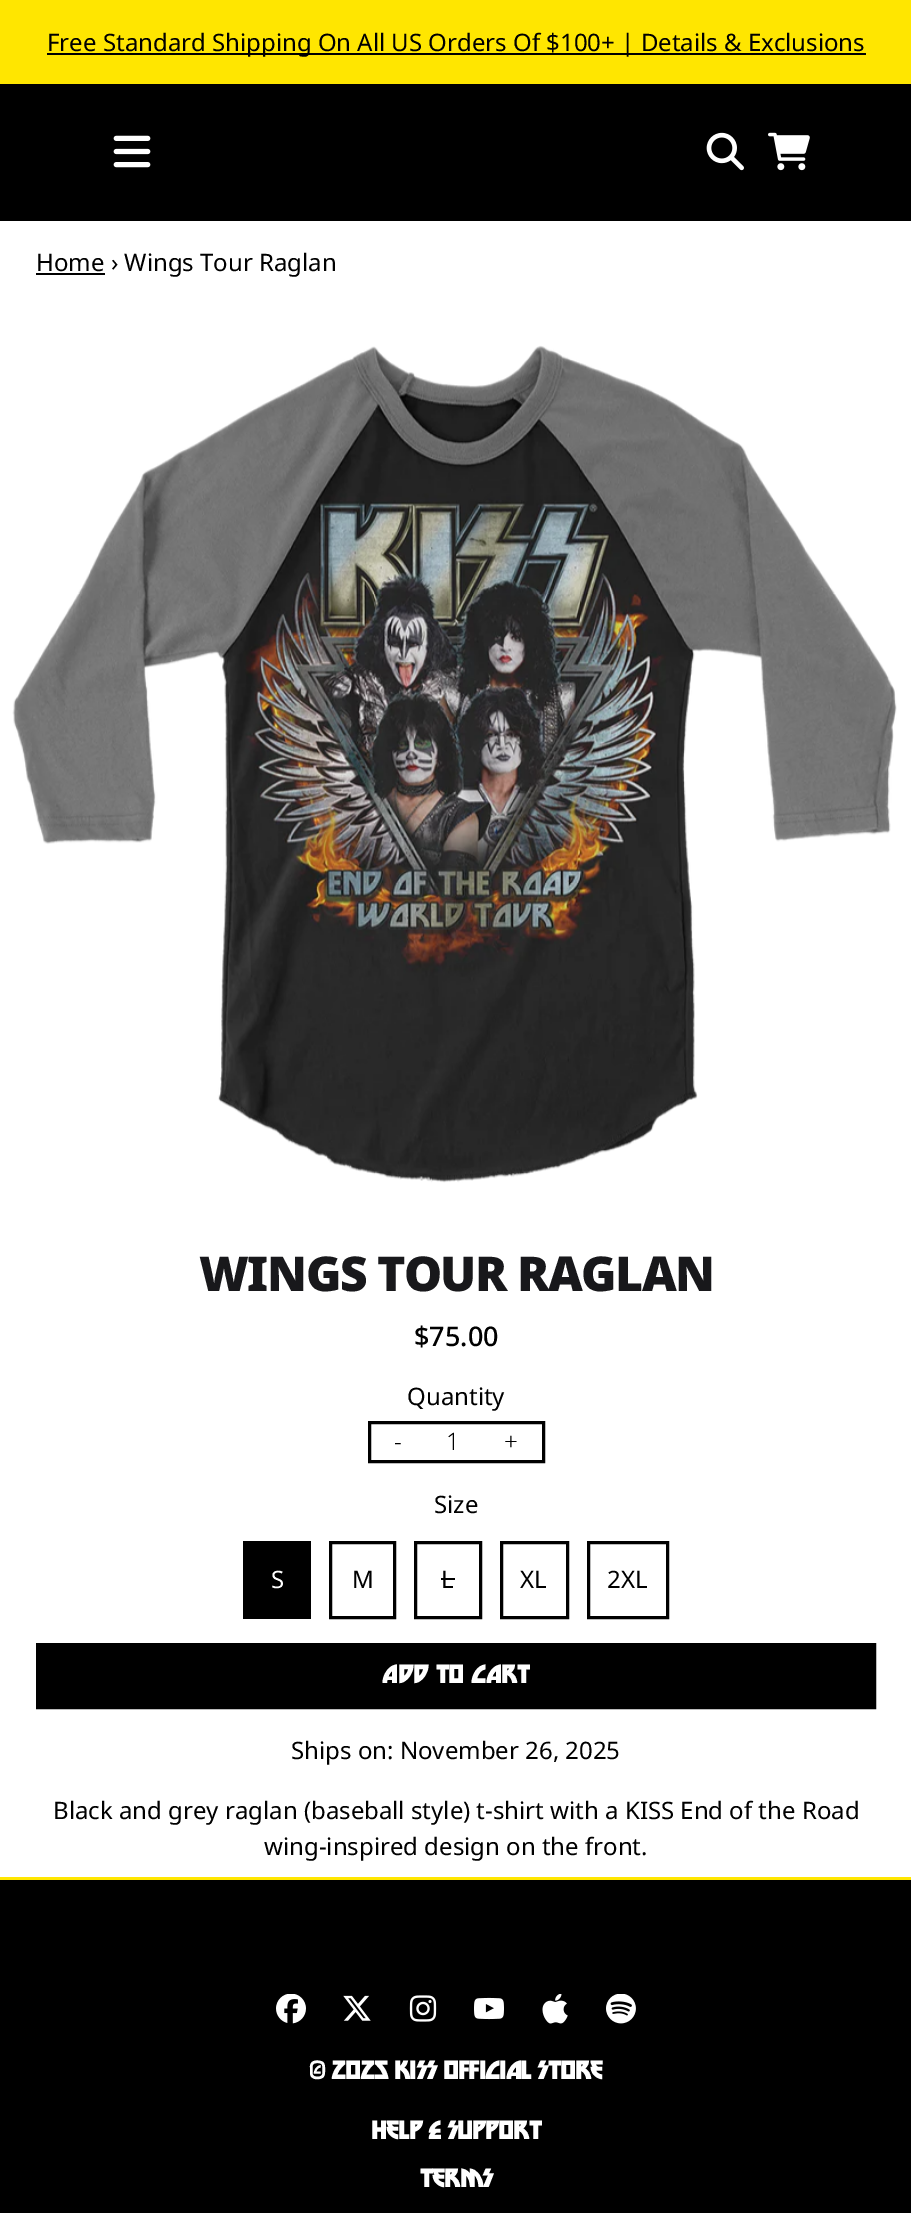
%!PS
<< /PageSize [911 2213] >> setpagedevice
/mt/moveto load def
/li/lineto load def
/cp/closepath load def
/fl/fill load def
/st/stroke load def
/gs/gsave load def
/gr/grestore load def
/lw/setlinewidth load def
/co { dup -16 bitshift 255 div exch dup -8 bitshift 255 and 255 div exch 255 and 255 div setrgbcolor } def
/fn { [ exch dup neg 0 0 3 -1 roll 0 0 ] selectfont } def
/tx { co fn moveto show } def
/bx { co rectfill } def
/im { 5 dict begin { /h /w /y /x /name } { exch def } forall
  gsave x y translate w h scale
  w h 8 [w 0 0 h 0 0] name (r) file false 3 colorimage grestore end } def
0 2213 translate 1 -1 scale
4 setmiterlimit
0 0 911 2213 16#FFFFFF bx
0 0 911 84 16#FFE600 bx
47 53 819 2 16#000000 bx
0 84 911 137 16#000000 bx
(media/1.raw) 113 135 38 33 im
(media/2.raw) 706 132 38 39 im
(media/3.raw) 768 132 42 39 im
36 273 69 2 16#000000 bx
(media/4.raw) 12 345 885 838 im
3 lw
369.5 1422.5 174 39 rectstroke
243 1541 68 78 16#000000 bx
330.5 1542.5 64 75 rectstroke
415.5 1542.5 65 75 rectstroke
441 1578 14 2 16#000000 bx
501.5 1542.5 66 75 rectstroke
588.5 1542.5 79 75 rectstroke
37.5 1644.5 mt 874.5 1644.5 li 874.5 1707.5 li 37.5 1707.5 li cp gs fl gr
st
0 1880 911 333 16#000000 bx
0 1877 911 3 16#FFE600 bx
(media/5.raw) 276 1994 30 30 im
(media/6.raw) 343 1995 28 26 im
(media/7.raw) 409 1995 28 27 im
(media/8.raw) 474 1997 30 23 im
(media/9.raw) 542 1994 26 30 im
(media/10.raw) 606 1994 30 30 im
(Free Standard Shipping On All US Orders Of $100+ | Details & Exclusions) 47 51 /NotoSans-Regular 24 16#000000 tx
(Home › Wings Tour Raglan) 36 271 /NotoSans-Regular 24 16#000000 tx
/NotoSans-Black 48 fn
16#18181B co
199 1291 mt -1.5 0 (WINGS TOUR RAGLAN) ashow
($75.00) 414 1346 /NotoSans-Medium 27 16#000000 tx
(Quantity) 407 1405 /NotoSans-Regular 24 16#000000 tx
(-) 394 1450 /NotoSans-Light 24 16#000000 tx
(1) 446 1450 /NotoSans-Light 24 16#000000 tx
(+) 504 1450 /NotoSans-Light 24 16#000000 tx
(Size) 434 1513 /NotoSans-Regular 24 16#000000 tx
(S) 271 1588 /NotoSans-Regular 24 16#FFFFFF tx
(M) 352 1588 /NotoSans-Regular 24 16#000000 tx
(L) 441 1588 /NotoSans-Regular 24 16#000000 tx
(XL) 520 1588 /NotoSans-Regular 24 16#000000 tx
(2XL) 607 1588 /NotoSans-Regular 24 16#000000 tx
(ADD TO CART) 382 1683 /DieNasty-Bold 24 16#FFFFFF tx
(Ships on: November 26, 2025) 291 1759 /NotoSans-Regular 24 16#000000 tx
(Black and grey raglan \(baseball style\) t-shirt with a KISS End of the Road) 53 1819 /NotoSans-Regular 24 16#000000 tx
(wing-inspired design on the front.) 264 1855 /NotoSans-Regular 24 16#000000 tx
/DieNasty-Bold 24 fn
16#FFFFFF co
309 2079 mt -.75 0 (© 2025 KISS OFFICIAL STORE) ashow
371 2139 mt -.75 0 (HELP & SUPPORT) ashow
420 2187 mt -.75 0 (TERMS) ashow
showpage
